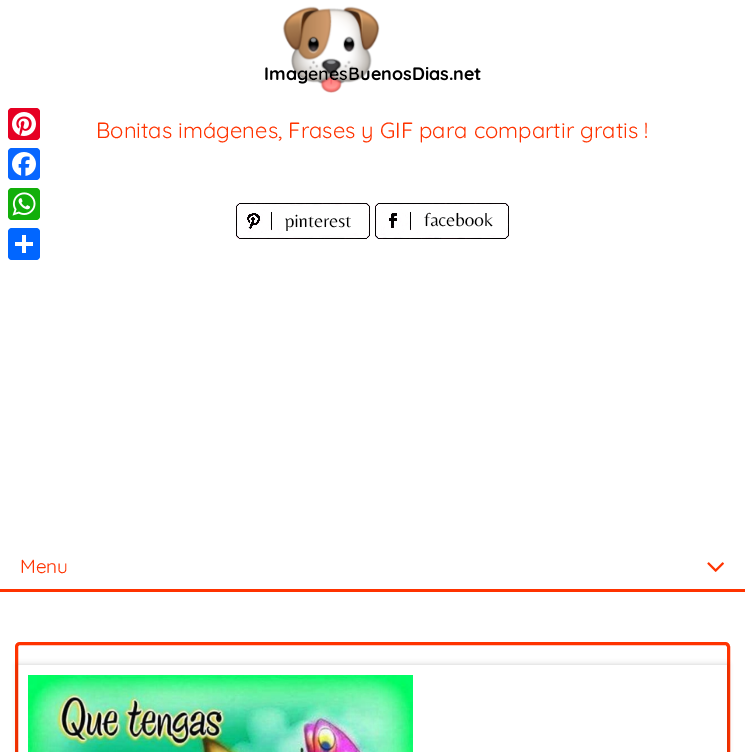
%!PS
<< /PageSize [745 752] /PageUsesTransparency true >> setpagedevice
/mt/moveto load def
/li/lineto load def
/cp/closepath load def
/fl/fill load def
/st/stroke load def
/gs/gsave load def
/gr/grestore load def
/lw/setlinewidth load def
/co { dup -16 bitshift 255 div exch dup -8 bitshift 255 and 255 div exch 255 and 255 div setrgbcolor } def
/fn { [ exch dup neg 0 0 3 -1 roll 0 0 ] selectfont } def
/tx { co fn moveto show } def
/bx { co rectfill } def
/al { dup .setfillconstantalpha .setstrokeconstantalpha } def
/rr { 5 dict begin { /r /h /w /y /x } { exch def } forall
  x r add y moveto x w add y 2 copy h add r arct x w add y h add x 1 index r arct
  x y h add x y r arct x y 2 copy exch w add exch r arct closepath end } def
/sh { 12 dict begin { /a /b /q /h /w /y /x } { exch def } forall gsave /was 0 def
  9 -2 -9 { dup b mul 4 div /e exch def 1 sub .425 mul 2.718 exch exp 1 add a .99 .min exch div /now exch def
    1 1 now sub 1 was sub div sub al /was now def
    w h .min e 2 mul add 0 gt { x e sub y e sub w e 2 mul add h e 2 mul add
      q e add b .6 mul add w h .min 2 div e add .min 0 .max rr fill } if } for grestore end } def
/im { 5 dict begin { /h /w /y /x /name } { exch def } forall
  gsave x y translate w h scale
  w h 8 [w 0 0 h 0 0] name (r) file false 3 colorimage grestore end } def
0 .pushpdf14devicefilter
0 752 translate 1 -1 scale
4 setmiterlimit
0 0 745 752 16#FFFFFF bx
16#E60023 co
8 108 32 32 4 rr fl
(media/1.raw) 12 112 24 24 im
16#0866FF co
8 148 32 32 4 rr fl
(media/2.raw) 12 152 24 24 im
16#12AF0A co
8 188 32 32 4 rr fl
(media/3.raw) 12 192 24 24 im
16#0166FF co
8 228 32 32 4 rr fl
22 235 4 18 16#FFFFFF bx
15 242 18 4 16#FFFFFF bx
(media/4.raw) 265 6 216 87 im
(media/5.raw) 236 203 134 36 im
(media/6.raw) 375 203 134 36 im
0 589 745 3 16#FF3300 bx
(media/7.raw) 707 562 17 10 im
3 lw
16.5 643.5 712 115 3.5 rr st
gs
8 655 mt 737 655 li 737 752 li 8 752 li cp 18 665 mt 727 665 li 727 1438 li 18 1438 li cp eoclip newpath
16#000000 co
18 665 709 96 0 3 .2 sh
gr
(media/8.raw) 28 675 385 77 im
(Bonitas imágenes, Frases y GIF para compartir gratis !) 96 138 /Quicksand-Light 22 16#FF3300 tx
(Menu) 20 573 /Quicksand-Light 19 16#FF3300 tx
.poppdf14devicefilter showpage
